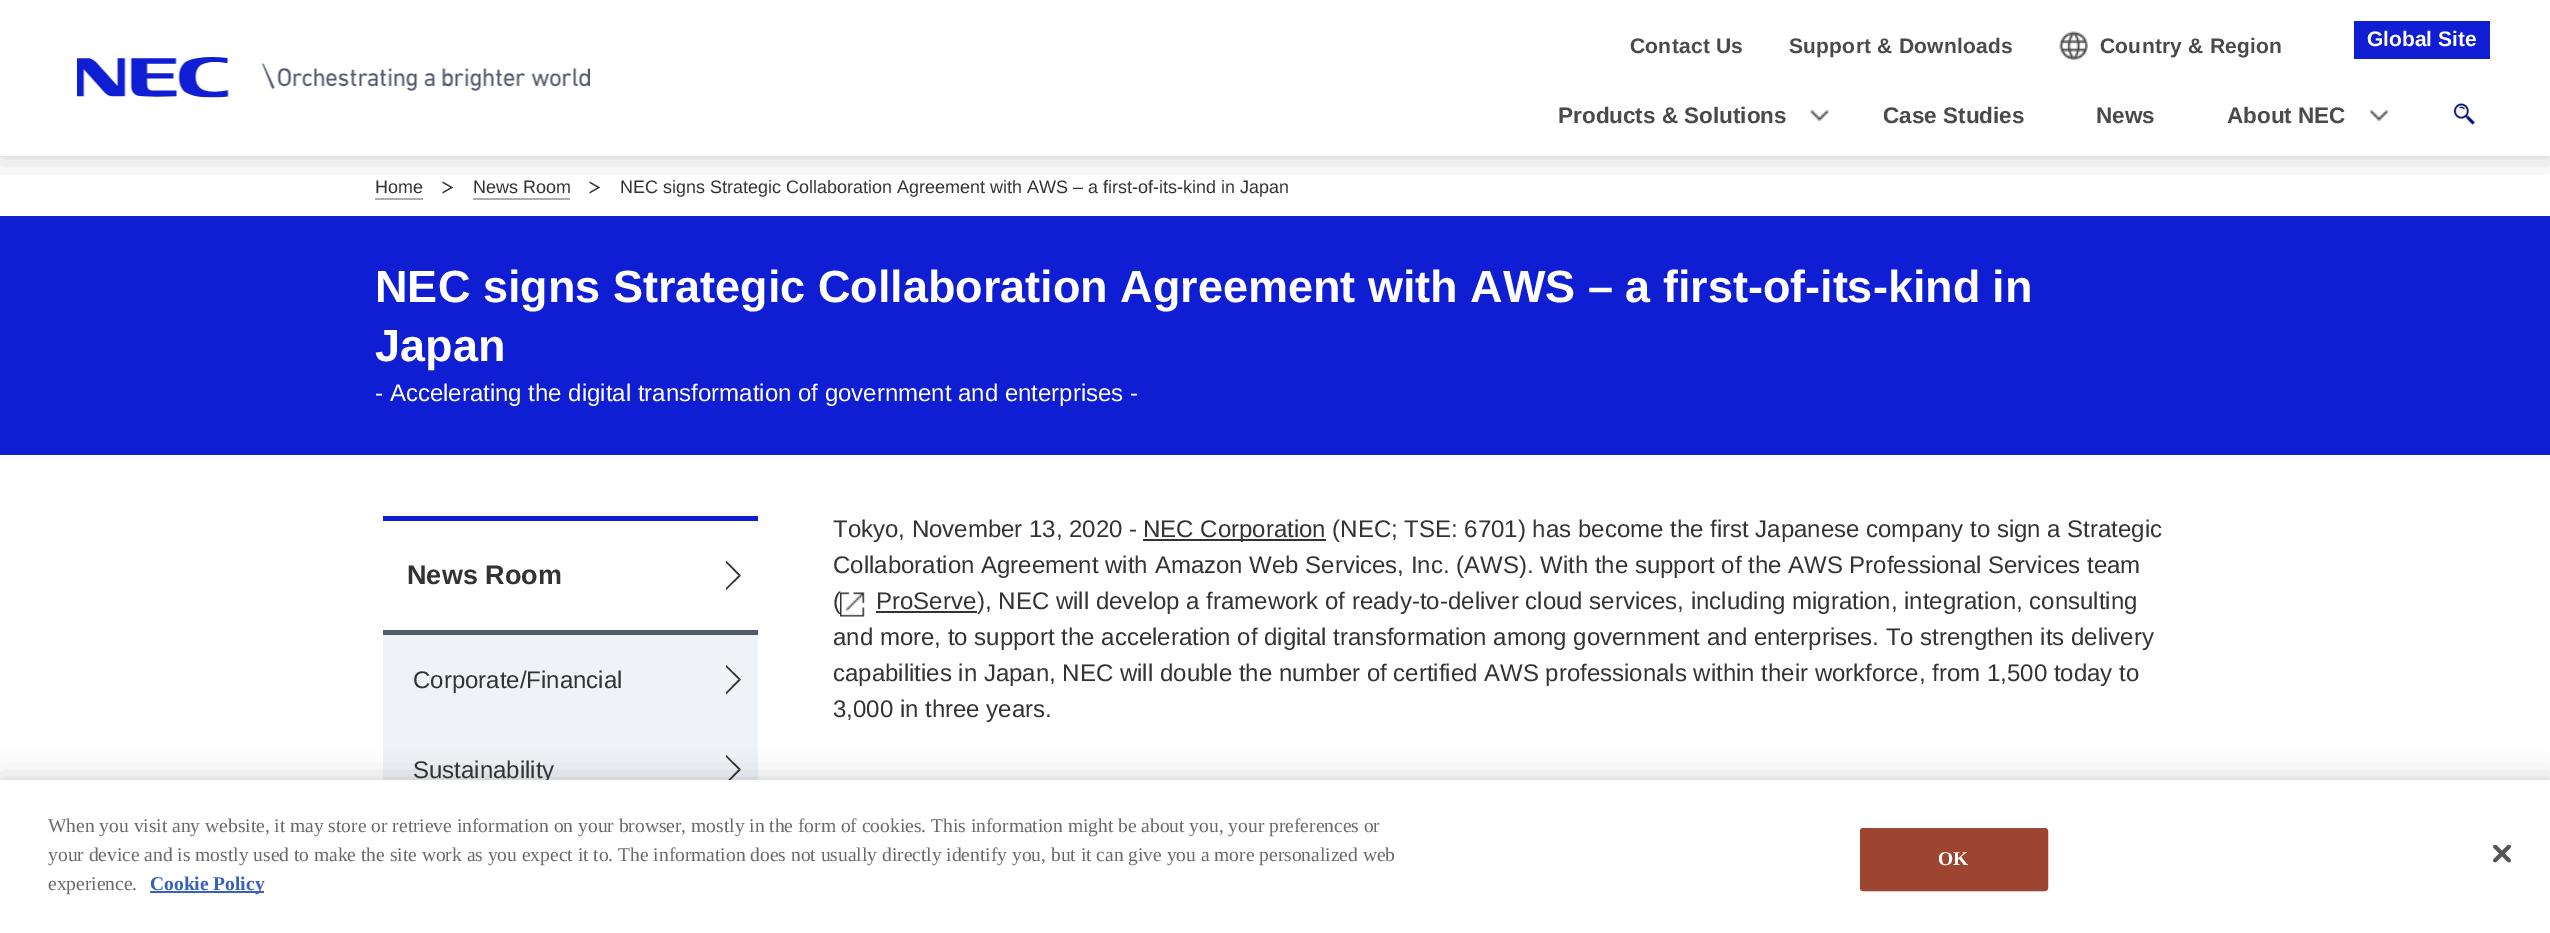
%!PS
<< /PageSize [2550 933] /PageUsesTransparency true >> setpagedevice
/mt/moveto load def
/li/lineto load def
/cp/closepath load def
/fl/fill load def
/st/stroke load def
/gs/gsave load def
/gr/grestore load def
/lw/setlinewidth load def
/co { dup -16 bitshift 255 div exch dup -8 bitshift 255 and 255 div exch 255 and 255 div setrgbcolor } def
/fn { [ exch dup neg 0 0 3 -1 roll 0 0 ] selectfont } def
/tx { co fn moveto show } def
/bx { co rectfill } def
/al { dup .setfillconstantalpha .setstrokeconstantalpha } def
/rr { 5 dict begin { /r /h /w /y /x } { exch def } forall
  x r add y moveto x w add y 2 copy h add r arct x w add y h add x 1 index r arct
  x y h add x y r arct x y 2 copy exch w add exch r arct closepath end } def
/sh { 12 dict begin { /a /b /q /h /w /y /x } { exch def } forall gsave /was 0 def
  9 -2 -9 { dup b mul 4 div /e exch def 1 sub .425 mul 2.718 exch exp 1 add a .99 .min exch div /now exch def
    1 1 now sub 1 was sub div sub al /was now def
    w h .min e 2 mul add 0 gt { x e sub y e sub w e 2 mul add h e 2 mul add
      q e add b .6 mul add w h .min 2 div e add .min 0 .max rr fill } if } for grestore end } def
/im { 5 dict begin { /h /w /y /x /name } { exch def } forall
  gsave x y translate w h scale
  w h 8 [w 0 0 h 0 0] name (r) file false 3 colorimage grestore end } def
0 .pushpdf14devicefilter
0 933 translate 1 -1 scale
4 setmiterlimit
0 0 2550 933 16#FFFFFF bx
375 198 48 2 16#ADADAD bx
16#333333 co
442.5 193.5 mt 442.5 181.5 li 453 187.5 li cp fl
16#FFFFFF co
439.5 193.5 mt 439.5 181.5 li 450 187.5 li cp fl
473 198 97 2 16#ADADAD bx
16#333333 co
589.5 193.5 mt 589.5 181.5 li 600 187.5 li cp fl
16#FFFFFF co
586.5 193.5 mt 586.5 181.5 li 597 187.5 li cp fl
gs
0 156 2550 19 rectclip
16#000000 co
0 0 2550 156 0 15 .2 sh
gr
(media/1.raw) 77 57 513 41 im
(media/2.raw) 2059 31 29 29 im
(media/3.raw) 1810 110 19 11 im
(media/4.raw) 2370 110 18 11 im
2354 21 136 38 16#0F1ED2 bx
(media/5.raw) 2453 103 22 22 im
0 216 2550 239 16#0F1ED2 bx
383 516 375 5 16#0F1ED2 bx
383 630 375 5 16#535A6E bx
16#333333 co
726 560.5 mt 741 575.5 li 738.5 575.5 li 726 562.5 li cp fl
741 575.5 mt 726 590 li 726 588 li 738.5 575.5 li cp fl
383 635 375 145 16#EFF2F6 bx
16#333333 co
726 665 mt 741 679.5 li 738.5 679.5 li 726 667 li cp fl
741 679.5 mt 726 694.5 li 726 692.5 li 738.5 679.5 li cp fl
726 755 mt 741 769.5 li 738.5 769.5 li 726 757 li cp fl
741 769.5 mt 726 784.5 li 726 782.5 li 738.5 769.5 li cp fl
1143 539 183 2 16#333333 bx
876 611 101 2 16#333333 bx
16#000000 co
0 780 2550 153 0 13.5 .2 sh
/LiberationSans-Bold 21 fn
16#4A4A4A co
1630 53 mt .25 0 (Contact Us) ashow
1789 53 mt .25 0 (Support & Downloads) ashow
2100 53 mt .25 0 (Country & Region) ashow
(Products & Solutions) 1558 123 /LiberationSans-Bold 22.5 16#4A4A4A tx
(Case Studies) 1883 123 /LiberationSans-Bold 22.5 16#4A4A4A tx
(News) 2096 123 /LiberationSans-Bold 22.5 16#4A4A4A tx
(About NEC) 2227 123 /LiberationSans-Bold 22.5 16#4A4A4A tx
(Global Site) 2367 46 /LiberationSans-Bold 21 16#FFFFFF tx
(Home) 375 193 /LiberationSans-Regular 18 16#333333 tx
(News Room) 473 193 /LiberationSans-Regular 18 16#333333 tx
(NEC signs Strategic Collaboration Agreement with AWS – a first-of-its-kind in Japan) 620 193 /LiberationSans-Regular 18 16#333333 tx
(NEC signs Strategic Collaboration Agreement with AWS – a first-of-its-kind in) 375 302 /LiberationSans-Bold 45 16#FFFFFF tx
(Japan) 375 361 /LiberationSans-Bold 45 16#FFFFFF tx
(- Accelerating the digital transformation of government and enterprises -) 375 401 /LiberationSans-Regular 24 16#FFFFFF tx
(News Room) 407 584 /LiberationSans-Bold 27 16#333333 tx
(Corporate/Financial) 413 688 /LiberationSans-Regular 24 16#333333 tx
(Sustainability) 413 778 /LiberationSans-Regular 24 16#333333 tx
(Tokyo, November 13, 2020 -) 833 537 /LiberationSans-Regular 24 16#333333 tx
(NEC Corporation \(NEC; TSE: 6701\) has become the first Japanese company to sign a Strategic) 1143 537 /LiberationSans-Regular 24 16#333333 tx
(Collaboration Agreement with Amazon Web Services, Inc. \(AWS\). With the support of the AWS Professional Services team) 833 573 /LiberationSans-Regular 24 16#333333 tx
(\() 833 609 /LiberationSans-Regular 24 16#333333 tx
(media/6.raw) 840 592 25 25 im
(ProServe) 876 609 /LiberationSans-Regular 24 16#333333 tx
(\), NEC will develop a framework of ready-to-deliver cloud services, including migration, integration, consulting) 977 609 /LiberationSans-Regular 24 16#333333 tx
(and more, to support the acceleration of digital transformation among government and enterprises. To strengthen its delivery) 833 645 /LiberationSans-Regular 24 16#333333 tx
(capabilities in Japan, NEC will double the number of certified AWS professionals within their workforce, from 1,500 today to) 833 681 /LiberationSans-Regular 24 16#333333 tx
(3,000 in three years.) 833 717 /LiberationSans-Regular 24 16#333333 tx
0 780 2550 153 16#FFFFFF bx
(When you visit any website, it may store or retrieve information on your browser, mostly in the form of cookies. This information might be about you, your preferences or) 48 832 /LiberationSerif-Regular 19.5 16#696969 tx
(your device and is mostly used to make the site work as you expect it to. The information does not usually directly identify you, but it can give you a more personalized web) 48 861 /LiberationSerif-Regular 19.5 16#696969 tx
(experience.) 48 890 /LiberationSerif-Regular 19.5 16#696969 tx
150 891 114 2 16#3860BE bx
(Cookie Policy) 150 890 /LiberationSerif-Bold 19.5 16#3860BE tx
16#9D4531 co
1861 829 186 61 2 rr gs fl gr
2 lw
st
(OK) 1938 865 /LiberationSerif-Bold 19.5 16#FFFFFF tx
(media/7.raw) 2493 845 18 18 im
.poppdf14devicefilter showpage
